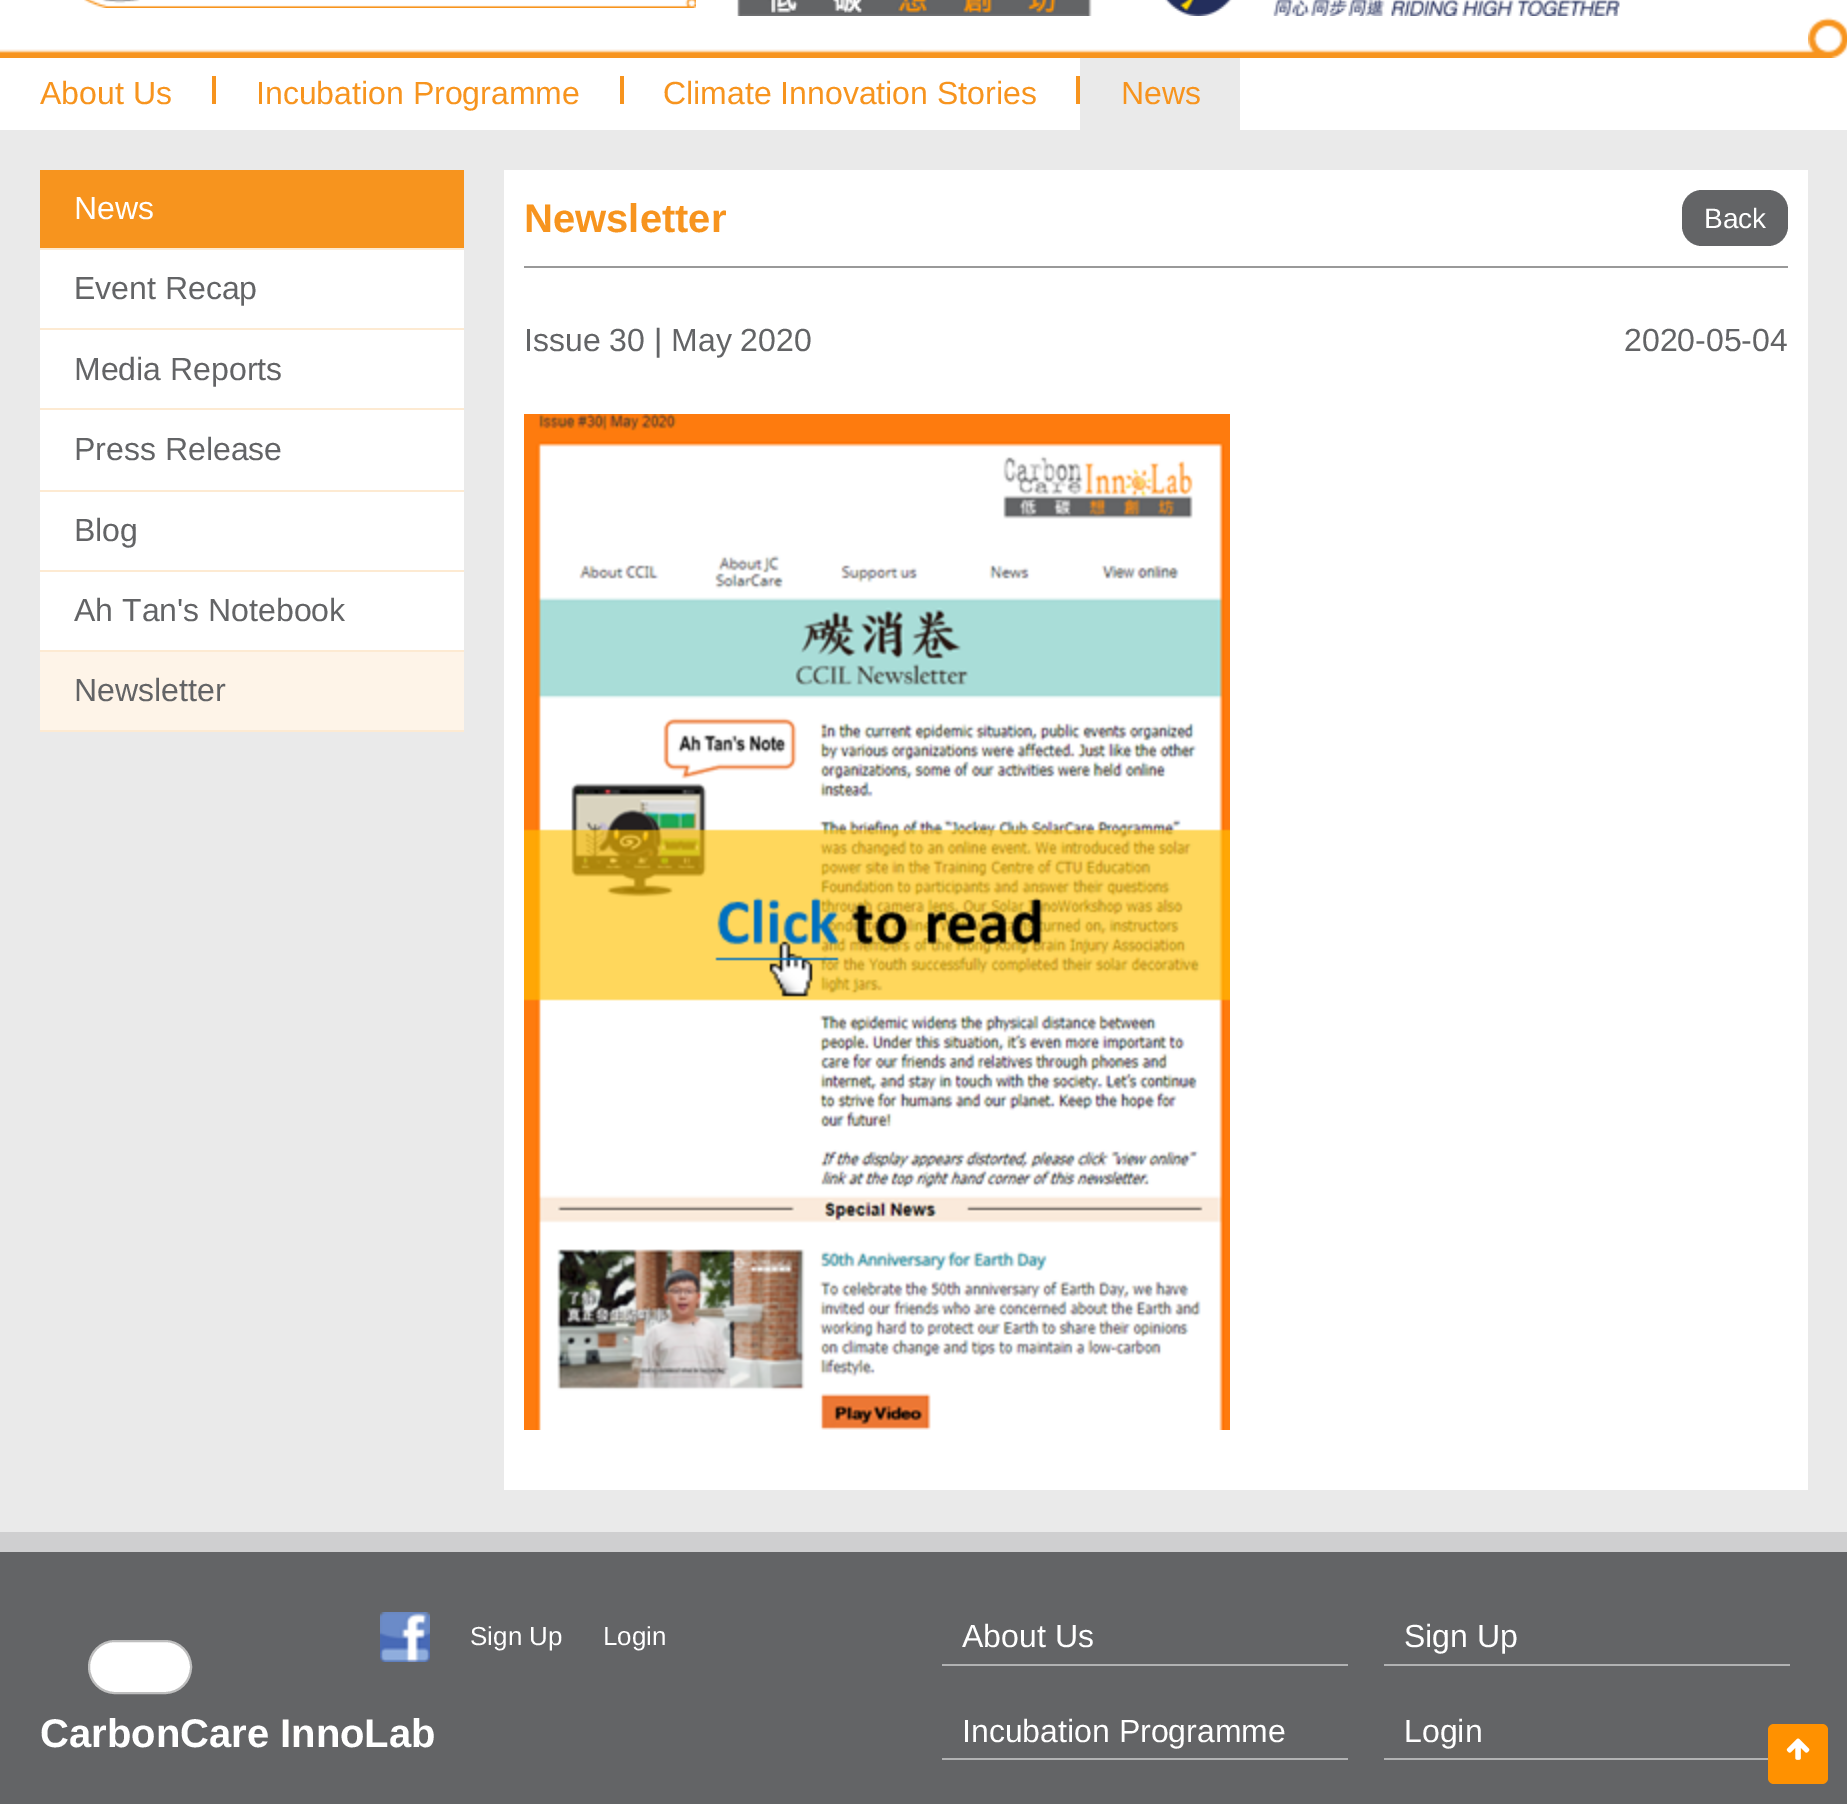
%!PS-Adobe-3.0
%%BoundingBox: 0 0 1847 1804
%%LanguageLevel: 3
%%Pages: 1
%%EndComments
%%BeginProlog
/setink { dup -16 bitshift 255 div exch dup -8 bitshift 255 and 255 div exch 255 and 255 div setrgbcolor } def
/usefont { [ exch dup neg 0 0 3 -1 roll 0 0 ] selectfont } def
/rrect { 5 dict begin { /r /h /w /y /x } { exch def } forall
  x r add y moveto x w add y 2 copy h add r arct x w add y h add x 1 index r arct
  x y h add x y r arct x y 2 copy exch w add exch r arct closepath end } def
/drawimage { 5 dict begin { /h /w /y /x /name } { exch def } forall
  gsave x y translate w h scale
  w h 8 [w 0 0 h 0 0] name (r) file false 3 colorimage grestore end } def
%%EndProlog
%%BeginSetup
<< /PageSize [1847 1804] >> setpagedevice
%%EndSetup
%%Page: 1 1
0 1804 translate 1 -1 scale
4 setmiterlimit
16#EAEAEA setink
0 0 1847 1804 rectfill
16#FFFFFF setink
0 0 1847 130 rectfill
(img1.raw) 84 0 612 8 drawimage
(img2.raw) 737 0 883 16 drawimage
(img3.raw) 0 49 923 9 drawimage
(img4.raw) 923 49 885 9 drawimage
(img5.raw) 1808 17 39 41 drawimage
/LiberationSans-Regular 32 usefont
16#F7941E setink
40 104 moveto (About Us) show
212 76 4 28 rectfill
256 104 moveto (Incubation Programme) show
620 76 4 28 rectfill
663 104 moveto (Climate Innovation Stories) show
1076 76 4 28 rectfill
16#EAEAEA setink
1080 58 160 72 rectfill
16#F7941E setink
1121 104 moveto (News) show
[
    [40 250 424 400 16#FFFFFF]
    [40 170 424 78 16#F7941E]
    [40 248 424 2 16#FDEAD2]
] { aload pop setink rectfill } forall
16#FFFFFF setink
74 219 moveto (News) show
16#FDEAD2 setink
40 328 424 2 rectfill
16#636466 setink
74 299 moveto (Event Recap) show
16#FDEAD2 setink
40 408 424 2 rectfill
16#636466 setink
74 380 moveto (Media Reports) show
16#FDEAD2 setink
40 490 424 2 rectfill
16#636466 setink
74 460 moveto (Press Release) show
16#FDEAD2 setink
40 570 424 2 rectfill
16#636466 setink
74 541 moveto (Blog) show
16#FDEAD2 setink
40 650 424 2 rectfill
16#636466 setink
74 621 moveto (Ah Tan's Notebook) show
16#FEF4E8 setink
40 652 424 78 rectfill
16#FDEAD2 setink
40 730 424 2 rectfill
16#636466 setink
74 701 moveto (Newsletter) show
16#FFFFFF setink
504 170 1304 1320 rectfill
16#999999 setink
524 266 1264 2 rectfill
/LiberationSans-Bold 40 usefont
16#F7941E setink
524 232 moveto (Newsletter) show
16#636466 setink
1682 190 106 56 20 rrect fill
/LiberationSans-Regular 28 usefont
16#FFFFFF setink
1704 228 moveto (Back) show
/LiberationSans-Regular 32 usefont
16#636466 setink
524 351 moveto (Issue 30 | May 2020) show
1624 351 moveto (2020-05-04) show
(img6.raw) 524 414 706 1016 drawimage
0 1552 1847 252 rectfill
16#FF9100 setink
1768 1724 60 60 6 rrect fill
(img7.raw) 1786 1738 24 22 drawimage
16#CFCFD0 setink
0 1532 1847 20 rectfill
16#FFFFFF setink
89 1641 102 52 26 rrect gsave fill grestore
16#BEBEBE setink
2 setlinewidth
stroke
(img8.raw) 380 1612 50 50 drawimage
/LiberationSans-Regular 26 usefont
16#FFFFFF setink
470 1645 moveto (Sign Up) show
603 1645 moveto (Login) show
16#B1B2B3 setink
942 1664 406 2 rectfill
/LiberationSans-Regular 32 usefont
16#FFFFFF setink
962 1647 moveto (About Us) show
16#B1B2B3 setink
942 1758 406 2 rectfill
16#FFFFFF setink
962 1742 moveto (Incubation Programme) show
16#B1B2B3 setink
1384 1664 406 2 rectfill
16#FFFFFF setink
1404 1647 moveto (Sign Up) show
16#B1B2B3 setink
1384 1758 384 2 rectfill
16#FFFFFF setink
1404 1742 moveto (Login) show
/LiberationSans-Bold 40 usefont
40 1747 moveto (CarbonCare InnoLab) show
showpage
%%EOF
